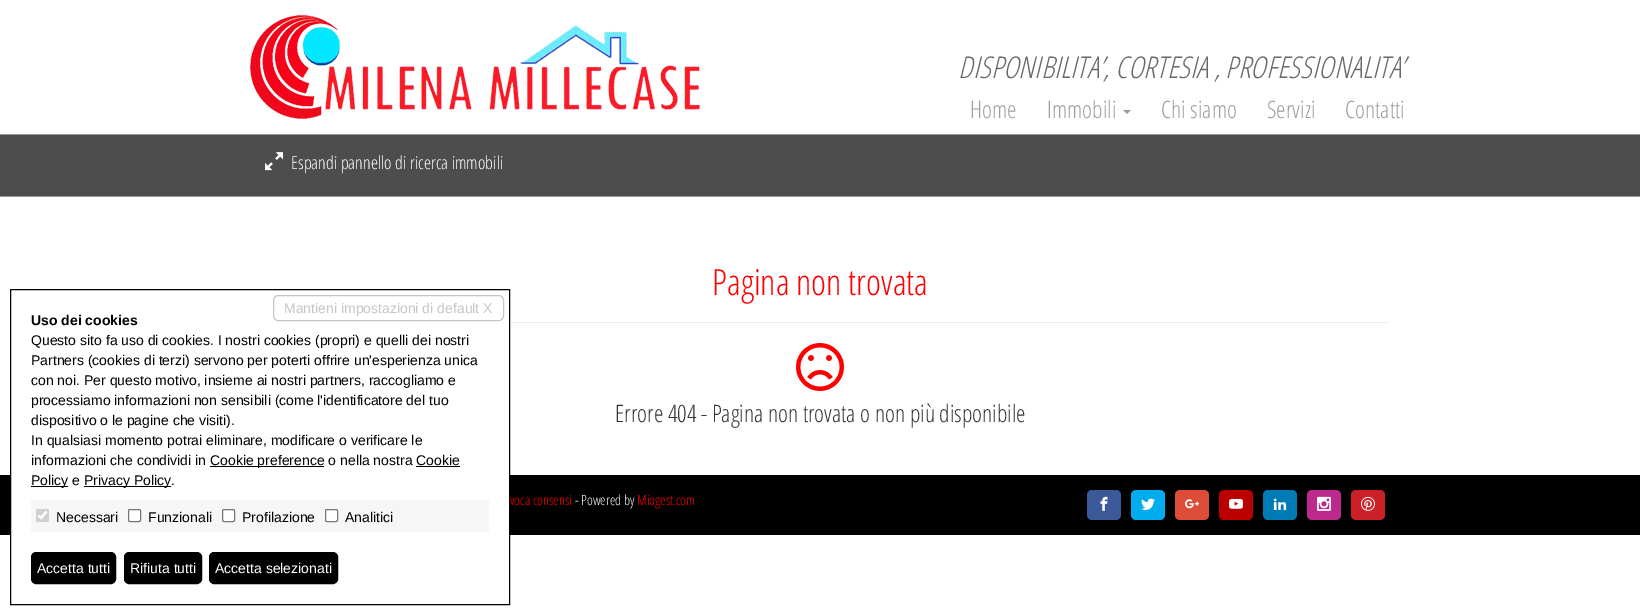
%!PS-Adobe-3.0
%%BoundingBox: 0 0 1640 615
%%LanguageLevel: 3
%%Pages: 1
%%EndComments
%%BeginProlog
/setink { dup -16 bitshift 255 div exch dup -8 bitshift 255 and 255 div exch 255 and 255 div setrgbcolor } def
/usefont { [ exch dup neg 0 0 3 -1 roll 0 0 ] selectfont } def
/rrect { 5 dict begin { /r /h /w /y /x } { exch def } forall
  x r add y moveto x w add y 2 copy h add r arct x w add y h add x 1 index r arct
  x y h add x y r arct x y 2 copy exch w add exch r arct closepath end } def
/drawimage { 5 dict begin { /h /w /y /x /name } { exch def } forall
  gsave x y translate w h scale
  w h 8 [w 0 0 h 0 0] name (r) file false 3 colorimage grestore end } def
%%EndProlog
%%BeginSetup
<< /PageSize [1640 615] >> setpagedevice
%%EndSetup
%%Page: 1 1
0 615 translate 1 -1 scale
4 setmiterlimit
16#FFFFFF setink
0 0 1640 615 rectfill
16#969696 setink
0 134 1640 1 rectfill
(img1.raw) 250 15 450 104 drawimage
/OpenSansCondensed-LightItalic 30 usefont
16#696969 setink
958 78 moveto (DISPONIBILITA’, CORTESIA , PROFESSIONALITA’) show
/OpenSansCondensed-Light 24 usefont
16#9D9D9D setink
970 118 moveto (Home) show
1047 118 moveto (Immobili) show
1123 110 moveto 1131 110 lineto 1127 114 lineto closepath fill
[
    [(Chi siamo) 1161 118]
    [(Servizi) 1267 118]
    [(Contatti) 1345 118]
] { aload pop moveto show } forall
16#4D4D4D setink
0 135 1640 61 rectfill
16#969696 setink
0 196 1640 1 rectfill
(img2.raw) 265 152 18 19 drawimage
/OpenSansCondensed-Light 18 usefont
16#FFFFFF setink
291 169 moveto (Espandi pannello di ricerca immobili) show
16#000000 setink
0 475 1640 60 rectfill
16#FFFFFF setink
11 475 498 60 rectfill
16#000000 setink
10.5 289.5 499 315 rectstroke
16#C6C6C6 setink
273.5 295.5 230 25 4.5 rrect stroke
/LiberationSans-Regular 14 usefont
284 313 moveto (Mantieni impostazioni di default X) show
/LiberationSans-Bold 14 usefont
16#000000 setink
31 325 moveto (Uso dei cookies) show
/LiberationSans-Regular 14 usefont
[
    [(Questo sito fa uso di cookies. I nostri cookies \(propri\) e quelli dei nostri) 31 345]
    [(Partners \(cookies di terzi\) servono per poterti offrire un'esperienza unica) 31 365]
    [(con noi. Per questo motivo, insieme ai nostri partners, raccogliamo e) 31 385]
    [(processiamo informazioni non sensibili \(come l'identificatore del tuo) 31 405]
    [(dispositivo o le pagine che visiti\).) 31 425]
    [(In qualsiasi momento potrai eliminare, modificare o verificare le) 31 445]
    [(informazioni che condividi in) 31 465]
] { aload pop moveto show } forall
210 466 114 1 rectfill
210 465 moveto (Cookie preference o nella nostra Cookie) show
31 486 37 1 rectfill
31 485 moveto (Policy e) show
416 466 44 1 rectfill
84 486 87 1 rectfill
84 485 moveto (Privacy Policy.) show
16#F6F6F6 setink
31 500 458 32 rectfill
16#D0D0D0 setink
36 509 13 13 2 rrect fill
16#FFFFFF setink
2.1 setlinewidth
38.5 515.5 moveto 41 518 lineto 46.5 511.5 lineto stroke
16#000000 setink
56 522 moveto (Necessari) show
16#FFFFFF setink
128.5 509.5 12 12 1.5 rrect gsave fill grestore
16#767676 setink
1 setlinewidth
stroke
16#000000 setink
148 522 moveto (Funzionali) show
16#FFFFFF setink
222.5 509.5 12 12 1.5 rrect gsave fill grestore
16#767676 setink
stroke
16#000000 setink
242 522 moveto (Profilazione) show
16#FFFFFF setink
325.5 509.5 12 12 1.5 rrect gsave fill grestore
16#767676 setink
stroke
16#000000 setink
345 522 moveto (Analitici) show
31.5 552.5 84 31 4.5 rrect gsave fill grestore
stroke
16#FFFFFF setink
37 573 moveto (Accetta tutti) show
16#000000 setink
124.5 552.5 77 31 4.5 rrect gsave fill grestore
stroke
16#FFFFFF setink
130 573 moveto (Rifiuta tutti) show
16#000000 setink
209.5 552.5 128 31 4.5 rrect gsave fill grestore
stroke
16#FFFFFF setink
215 573 moveto (Accetta selezionati) show
/OpenSansCondensed-Light 14 usefont
16#FF0000 setink
510 505 moveto (voca consensi) show
16#FFFFFF setink
575 505 moveto (- Powered by) show
16#FF0000 setink
637 505 moveto (Miogest.com) show
16#3B5998 setink
1087 490 34 30 5 rrect fill
(img3.raw) 1100 496 8 15 drawimage
16#00ACED setink
1131 490 34 30 5 rrect fill
(img4.raw) 1141 498 14 12 drawimage
16#DD4B39 setink
1175 490 34 30 5 rrect fill
(img5.raw) 1185 499 14 10 drawimage
16#BB0000 setink
1219 490 34 30 5 rrect fill
(img6.raw) 1229 498 14 11 drawimage
16#007BB6 setink
1263 490 34 30 5 rrect fill
(img7.raw) 1273 498 14 12 drawimage
16#BC2A8D setink
1307 490 34 30 5 rrect fill
(img8.raw) 1317 496 14 15 drawimage
16#CB2027 setink
1351 490 34 30 5 rrect fill
(img9.raw) 1361 496 14 15 drawimage
/OpenSansCondensed-Light 36 usefont
16#FF0000 setink
712 295 moveto (Pagina non trovata) show
16#EEEEEE setink
510 322 880 1 rectfill
(img10.raw) 796 343 48 48 drawimage
/OpenSansCondensed-Light 24 usefont
16#333333 setink
615 422 moveto (Errore 404 - Pagina non trovata o non più disponibile) show
showpage
%%EOF
